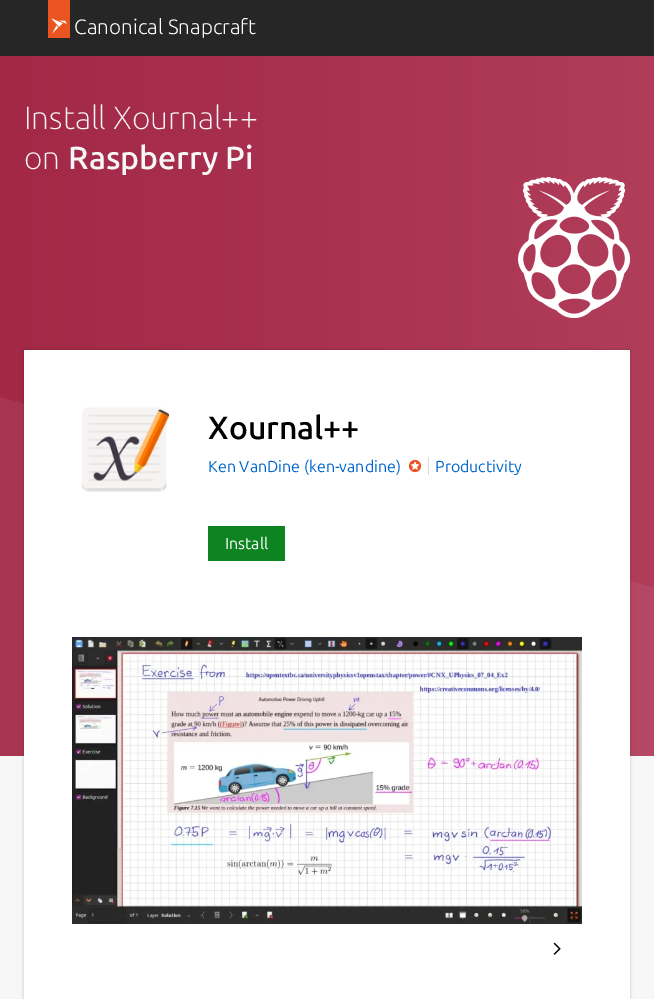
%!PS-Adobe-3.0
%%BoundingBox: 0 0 654 999
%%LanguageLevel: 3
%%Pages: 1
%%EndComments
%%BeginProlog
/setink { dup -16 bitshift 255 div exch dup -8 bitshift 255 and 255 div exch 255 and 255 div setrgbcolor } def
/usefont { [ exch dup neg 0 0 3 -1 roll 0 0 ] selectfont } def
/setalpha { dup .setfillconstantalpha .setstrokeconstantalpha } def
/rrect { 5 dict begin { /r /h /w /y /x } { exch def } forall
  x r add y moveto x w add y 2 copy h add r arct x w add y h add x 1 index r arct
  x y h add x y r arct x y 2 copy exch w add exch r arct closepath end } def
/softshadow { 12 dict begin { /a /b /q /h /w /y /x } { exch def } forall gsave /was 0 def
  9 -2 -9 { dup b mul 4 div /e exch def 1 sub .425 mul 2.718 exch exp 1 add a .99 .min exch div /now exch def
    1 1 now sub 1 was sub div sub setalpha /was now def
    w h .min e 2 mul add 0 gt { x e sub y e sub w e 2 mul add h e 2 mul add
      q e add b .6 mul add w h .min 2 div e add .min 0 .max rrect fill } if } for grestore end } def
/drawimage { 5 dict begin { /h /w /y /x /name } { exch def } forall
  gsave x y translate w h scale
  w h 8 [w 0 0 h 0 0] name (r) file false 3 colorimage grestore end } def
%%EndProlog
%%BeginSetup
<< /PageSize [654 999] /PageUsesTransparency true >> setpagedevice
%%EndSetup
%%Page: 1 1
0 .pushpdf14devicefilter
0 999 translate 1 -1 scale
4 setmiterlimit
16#F7F7F7 setink
0 0 654 999 rectfill
16#262626 setink
0 0 654 56 rectfill
16#E95420 setink
48 0 22 38 rectfill
(img1.raw) 51 18 16 16 drawimage
/Ubuntu-Light 20.75 usefont
16#FFFFFF setink
74 34 moveto (Canonical Snapcraft) show
gsave 0 56 moveto 654 56 lineto 654 756 lineto 0 756 lineto closepath clip newpath
<< /ShadingType 2 /ColorSpace /DeviceRGB /Coords [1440 406 0 406] /Extend [true true] /Function << /FunctionType 2 /Domain [0 1] /C0 [0.753 0.337 0.447] /C1 [0.635 0.157 0.275] /N 1 >> >> shfill grestore
0.06 setalpha
0 397 moveto 0 756 lineto 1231 756 lineto closepath fill
/Ubuntu-ExtraLight 32 usefont
1 setalpha
16#F7F7F7 setink
24 129 moveto (Install Xournal++) show
24 169 moveto (on) show
/Ubuntu-Medium 32 usefont
68 169 moveto (Raspberry Pi) show
(img2.raw) 518 177 112 141 drawimage
16#000000 setink
24 350 606 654 0 1.5 0.2 softshadow
16#FFFFFF setink
24 350 606 649 rectfill
(img3.raw) 81 407 89 85 drawimage
16#000000 setink
208 439 moveto (Xournal++) show
/Ubuntu-Regular 16 usefont
16#0066CC setink
208 472 moveto (Ken VanDine \(ken-vandine\)) show
16#D9D9D9 setink
428 457 1 18 rectfill
(img4.raw) 408 459 14 14 drawimage
16#0066CC setink
435 472 moveto (Productivity) show
16#0E8420 setink
208 526 77 35 rectfill
16#FFFFFF setink
225 549 moveto (Install) show
(img5.raw) 72 637 510 287 drawimage
(img6.raw) 553 942 8 13 drawimage
.poppdf14devicefilter showpage
%%EOF
